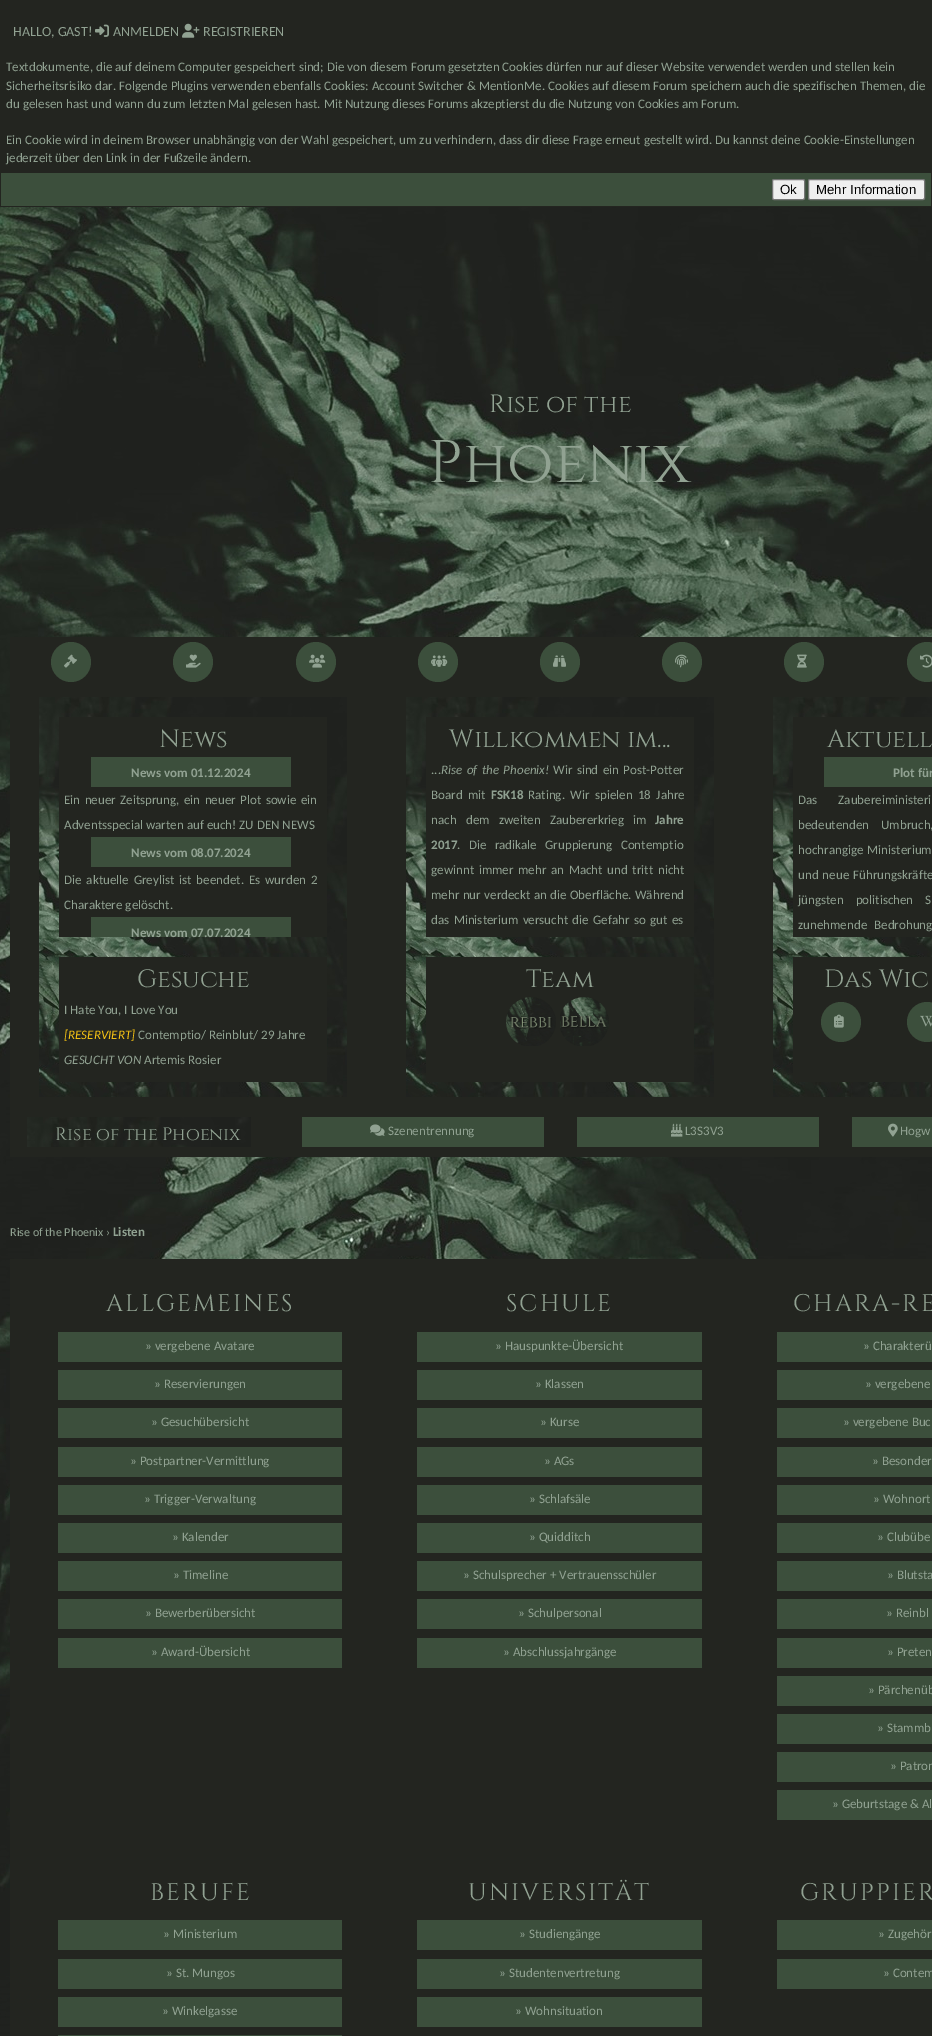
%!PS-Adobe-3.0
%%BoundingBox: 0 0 932 2036
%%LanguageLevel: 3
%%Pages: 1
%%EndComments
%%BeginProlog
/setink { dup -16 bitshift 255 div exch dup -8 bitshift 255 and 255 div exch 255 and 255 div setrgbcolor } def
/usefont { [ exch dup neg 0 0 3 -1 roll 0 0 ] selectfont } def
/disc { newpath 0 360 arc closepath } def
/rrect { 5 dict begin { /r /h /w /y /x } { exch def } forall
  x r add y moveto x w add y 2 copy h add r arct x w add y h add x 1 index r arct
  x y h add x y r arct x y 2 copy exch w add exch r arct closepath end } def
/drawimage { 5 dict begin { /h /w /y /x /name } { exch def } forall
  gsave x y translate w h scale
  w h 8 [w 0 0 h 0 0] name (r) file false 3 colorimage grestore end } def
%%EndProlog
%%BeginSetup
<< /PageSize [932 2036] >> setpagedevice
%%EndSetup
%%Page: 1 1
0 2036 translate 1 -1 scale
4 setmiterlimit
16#FFFFFF setink
0 0 932 2036 rectfill
(img1.raw) 0 207 932 1829 drawimage
16#232520 setink
0 0 932 207 rectfill
/Carlito-Regular 14 usefont
16#91A292 setink
13 36 moveto (HALLO, GAST!) show
(img2.raw) 95 24 14 13 drawimage
113 36 moveto (ANMELDEN) show
(img3.raw) 182 23 18 15 drawimage
203 36 moveto (REGISTRIEREN) show
/Carlito-Regular 13 usefont
[
    [(Textdokumente, die auf deinem Computer gespeichert sind; Die von diesem Forum gesetzten Cookies dürfen nur auf dieser Website verwendet werden und stellen kein) 6 71]
    [(Sicherheitsrisiko dar. Folgende Plugins verwenden ebenfalls Cookies: Account Switcher & MentionMe. Cookies auf diesem Forum speichern auch die spezifischen Themen, die) 6 90]
    [(du gelesen hast und wann du zum letzten Mal gelesen hast. Mit Nutzung dieses Forums akzeptierst du die Nutzung von Cookies am Forum.) 6 108]
    [(Ein Cookie wird in deinem Browser unabhängig von der Wahl gespeichert, um zu verhindern, dass dir diese Frage erneut gestellt wird. Du kannst deine Cookie-Einstellungen) 6 144]
    [(jederzeit über den Link in der Fußzeile ändern.) 6 162]
] { aload pop moveto show } forall
16#3C4F3C setink
1 173 930 33 rectfill
16#EFEFEF setink
772.5 179.5 32 20 1.5 rrect gsave fill grestore
16#767676 setink
stroke
/LiberationSans-Regular 13.25 usefont
16#000000 setink
780 194 moveto (Ok) show
16#EFEFEF setink
808.5 179.5 116 20 1.5 rrect gsave fill grestore
16#767676 setink
stroke
16#000000 setink
816 194 moveto (Mehr Information) show
/Cinzel-Regular 25 usefont
16#91A292 setink
489 412 moveto (Rise of the) show
/Cinzel-Regular 60 usefont
428 482 moveto (Phoenix) show
16#232520 setink
10 637 922 520 rectfill
16#3C4F3C setink
71 662 20 disc fill
(img4.raw) 64 654 13 14 drawimage
193 662 20 disc fill
(img5.raw) 186 654 15 14 drawimage
316 662 20 disc fill
(img6.raw) 309 654 17 14 drawimage
438 662 20 disc fill
(img7.raw) 431 655 17 12 drawimage
560 662 20 disc fill
(img8.raw) 553 655 13 12 drawimage
682 662 20 disc fill
(img9.raw) 675 654 13 14 drawimage
804 662 20 disc fill
(img10.raw) 797 654 10 14 drawimage
927 662 20 disc fill
(img11.raw) 920 654 12 14 drawimage
(img12.raw) 39 697 308 400 drawimage
16#232520 setink
59 717 268 220 rectfill
/Cinzel-Regular 25 usefont
16#91A292 setink
159 747 moveto (News) show
16#3C4F3C setink
91 757 200 30 rectfill
/Carlito-Bold 13 usefont
16#91A292 setink
131 777 moveto (News vom 01.12.2024) show
/Carlito-Regular 13 usefont
64 804 moveto 1.5 0 32 (Ein neuer Zeitsprung, ein neuer Plot sowie ein) widthshow
64 829 moveto (Adventsspecial warten auf euch! ZU DEN NEWS) show
16#3C4F3C setink
91 837 200 30 rectfill
/Carlito-Bold 13 usefont
16#91A292 setink
131 857 moveto (News vom 08.07.2024) show
/Carlito-Regular 13 usefont
64 884 moveto 2 0 32 (Die aktuelle Greylist ist beendet. Es wurden 2) widthshow
64 909 moveto (Charaktere gelöscht.) show
16#3C4F3C setink
91 917 200 20 rectfill
/Carlito-Bold 13 usefont
16#91A292 setink
131 937 moveto (News vom 07.07.2024) show
16#232520 setink
59 957 268 125 rectfill
/Cinzel-Regular 25 usefont
16#91A292 setink
137 987 moveto (Gesuche) show
/Carlito-Regular 13 usefont
64 1014 moveto (I Hate You, I Love You) show
/Carlito-Italic 13 usefont
16#F2C014 setink
64 1039 moveto ([RESERVIERT]) show
/Carlito-Regular 13 usefont
16#91A292 setink
138 1039 moveto (Contemptio/ Reinblut/ 29 Jahre) show
/Carlito-Italic 13 usefont
64 1064 moveto (GESUCHT VON) show
/Carlito-Regular 13 usefont
144 1064 moveto (Artemis Rosier) show
(img12.raw) 406 697 308 400 drawimage
16#232520 setink
426 717 268 220 rectfill
/Cinzel-Regular 25 usefont
16#91A292 setink
449 747 moveto (Willkommen im...) show
/Carlito-Regular 13 usefont
431 774 moveto (...) show
/Carlito-Italic 13 usefont
441 774 moveto 1.5 0 32 (Rise of the Phoenix!) widthshow
/Carlito-Regular 13 usefont
553 774 moveto 1.5 0 32 (Wir sind ein Post-Potter) widthshow
431 799 moveto 2.5 0 32 (Board mit) widthshow
/Carlito-Bold 13 usefont
491 799 moveto (FSK18) show
/Carlito-Regular 13 usefont
528 799 moveto 2.5 0 32 (Rating. Wir spielen 18 Jahre) widthshow
431 824 moveto 6.5 0 32 (nach dem zweiten Zaubererkrieg im) widthshow
/Carlito-Bold 13 usefont
655 824 moveto (Jahre) show
431 849 moveto (2017) show
/Carlito-Regular 13 usefont
457 849 moveto 5.5 0 32 (. Die radikale Gruppierung Contemptio) widthshow
431 874 moveto 1.75 0 32 (gewinnt immer mehr an Macht und tritt nicht) widthshow
431 899 moveto 0.5 0 32 (mehr nur verdeckt an die Oberfläche. Während) widthshow
431 924 moveto 1.5 0 32 (das Ministerium versucht die Gefahr so gut es) widthshow
16#232520 setink
426 957 268 125 rectfill
/Cinzel-Regular 25 usefont
16#91A292 setink
526 987 moveto (Team) show
(img13.raw) 506 997 50 49 drawimage
(img14.raw) 560 997 49 49 drawimage
(img15.raw) 773 697 159 400 drawimage
16#232520 setink
793 717 139 220 rectfill
16#91A292 setink
827 747 moveto (Aktuell) show
16#3C4F3C setink
824 757 108 30 rectfill
/Carlito-Bold 13 usefont
16#91A292 setink
893 777 moveto (Plot für) show
/Carlito-Regular 13 usefont
798 804 moveto 18 0 32 (Das Zaubereiministeri) widthshow
798 829 moveto 9 0 32 (bedeutenden Umbruch,) widthshow
798 854 moveto 1 0 32 (hochrangige Ministerium) widthshow
798 879 moveto 1 0 32 (und neue Führungskräfte) widthshow
798 904 moveto 9 0 32 (jüngsten politischen S) widthshow
798 929 moveto 4 0 32 (zunehmende Bedrohung) widthshow
16#232520 setink
793 957 139 125 rectfill
/Cinzel-Regular 25 usefont
16#91A292 setink
824 987 moveto (Das Wic) show
16#3C4F3C setink
841 1022 20 disc fill
(img16.raw) 834 1014 10 14 drawimage
927 1022 20 disc fill
(img17.raw) 920 1015 12 12 drawimage
(img18.raw) 27 1117 224 30 drawimage
/Cinzel-Regular 18 usefont
16#91A292 setink
55 1140 moveto (Rise of the Phoenix) show
16#3C4F3C setink
302 1117 242 30 rectfill
(img19.raw) 370 1124 15 12 drawimage
/Carlito-Regular 13 usefont
16#91A292 setink
388 1135 moveto (Szenentrennung) show
16#3C4F3C setink
577 1117 242 30 rectfill
(img20.raw) 671 1123 12 14 drawimage
16#91A292 setink
685 1135 moveto (L3S3V3) show
16#3C4F3C setink
852 1117 80 30 rectfill
(img21.raw) 888 1123 10 14 drawimage
16#91A292 setink
900 1135 moveto (Hogw) show
/Carlito-Regular 12 usefont
10 1236 moveto (Rise of the Phoenix ›) show
/Carlito-Bold 13 usefont
113 1236 moveto (Listen) show
16#232520 setink
10 1259 922 777 rectfill
/Cinzel-Regular 24 usefont
16#91A292 setink
106 1311 moveto 2 0 (ALLGEMEINES) ashow
506 1311 moveto 2 0 (SCHULE) ashow
793 1311 moveto 2 0 (CHARA-RE) ashow
16#3C4F3C setink
58 1332 284 30 rectfill
/Carlito-Regular 13 usefont
16#91A292 setink
145 1350 moveto (» vergebene Avatare) show
16#3C4F3C setink
58 1370 284 30 rectfill
16#91A292 setink
154 1388 moveto (» Reservierungen) show
16#3C4F3C setink
58 1408 284 30 rectfill
16#91A292 setink
151 1426 moveto (» Gesuchübersicht) show
16#3C4F3C setink
58 1447 284 30 rectfill
16#91A292 setink
130 1465 moveto (» Postpartner-Vermittlung) show
16#3C4F3C setink
58 1485 284 30 rectfill
16#91A292 setink
144 1503 moveto (» Trigger-Verwaltung) show
16#3C4F3C setink
58 1523 284 30 rectfill
16#91A292 setink
172 1541 moveto (» Kalender) show
16#3C4F3C setink
58 1561 284 30 rectfill
16#91A292 setink
173 1579 moveto (» Timeline) show
16#3C4F3C setink
58 1599 284 30 rectfill
16#91A292 setink
145 1617 moveto (» Bewerberübersicht) show
16#3C4F3C setink
58 1638 284 30 rectfill
16#91A292 setink
151 1656 moveto (» Award-Übersicht) show
16#3C4F3C setink
417 1332 285 30 rectfill
16#91A292 setink
495 1350 moveto (» Hauspunkte-Übersicht) show
16#3C4F3C setink
417 1370 285 30 rectfill
16#91A292 setink
535 1388 moveto (» Klassen) show
16#3C4F3C setink
417 1408 285 30 rectfill
16#91A292 setink
540 1426 moveto (» Kurse) show
16#3C4F3C setink
417 1447 285 30 rectfill
16#91A292 setink
544 1465 moveto (» AGs) show
16#3C4F3C setink
417 1485 285 30 rectfill
16#91A292 setink
529 1503 moveto (» Schlafsäle) show
16#3C4F3C setink
417 1523 285 30 rectfill
16#91A292 setink
529 1541 moveto (» Quidditch) show
16#3C4F3C setink
417 1561 285 30 rectfill
16#91A292 setink
463 1579 moveto (» Schulsprecher + Vertrauensschüler) show
16#3C4F3C setink
417 1599 285 30 rectfill
16#91A292 setink
518 1617 moveto (» Schulpersonal) show
16#3C4F3C setink
417 1638 285 30 rectfill
16#91A292 setink
503 1656 moveto (» Abschlussjahrgänge) show
16#3C4F3C setink
777 1332 155 30 rectfill
16#91A292 setink
863 1350 moveto (» Charakterü) show
16#3C4F3C setink
777 1370 155 30 rectfill
16#91A292 setink
865 1388 moveto (» vergebene) show
16#3C4F3C setink
777 1408 155 30 rectfill
16#91A292 setink
843 1426 moveto (» vergebene Buc) show
16#3C4F3C setink
777 1447 155 30 rectfill
16#91A292 setink
872 1465 moveto (» Besonder) show
16#3C4F3C setink
777 1485 155 30 rectfill
16#91A292 setink
873 1503 moveto (» Wohnort) show
16#3C4F3C setink
777 1523 155 30 rectfill
16#91A292 setink
877 1541 moveto (» Clubübe) show
16#3C4F3C setink
777 1561 155 30 rectfill
16#91A292 setink
887 1579 moveto (» Blutsta) show
16#3C4F3C setink
777 1599 155 30 rectfill
16#91A292 setink
886 1617 moveto (» Reinbl) show
16#3C4F3C setink
777 1638 155 30 rectfill
16#91A292 setink
887 1656 moveto (» Preten) show
16#3C4F3C setink
777 1676 155 30 rectfill
16#91A292 setink
868 1694 moveto (» Pärchenüb) show
16#3C4F3C setink
777 1714 155 30 rectfill
16#91A292 setink
877 1732 moveto (» Stammb) show
16#3C4F3C setink
777 1752 155 30 rectfill
16#91A292 setink
890 1770 moveto (» Patron) show
16#3C4F3C setink
777 1790 155 30 rectfill
16#91A292 setink
832 1808 moveto (» Geburtstage & Al) show
/Cinzel-Regular 24 usefont
150 1900 moveto 2 0 (BERUFE) ashow
468 1900 moveto 2 0 (UNIVERSITÄT) ashow
800 1900 moveto 2 0 (GRUPPIER) ashow
16#3C4F3C setink
58 1920 284 30 rectfill
/Carlito-Regular 13 usefont
16#91A292 setink
163 1938 moveto (» Ministerium) show
16#3C4F3C setink
58 1959 284 30 rectfill
16#91A292 setink
166 1977 moveto (» St. Mungos) show
16#3C4F3C setink
58 1997 284 30 rectfill
16#91A292 setink
162 2015 moveto (» Winkelgasse) show
16#3C4F3C setink
58 2035 284 1 rectfill
417 1920 285 30 rectfill
16#91A292 setink
519 1938 moveto (» Studiengänge) show
16#3C4F3C setink
417 1959 285 30 rectfill
16#91A292 setink
499 1977 moveto (» Studentenvertretung) show
16#3C4F3C setink
417 1997 285 30 rectfill
16#91A292 setink
515 2015 moveto (» Wohnsituation) show
16#3C4F3C setink
777 1920 155 30 rectfill
16#91A292 setink
878 1938 moveto (» Zugehör) show
16#3C4F3C setink
777 1959 155 30 rectfill
16#91A292 setink
883 1977 moveto (» Contem) show
showpage
%%EOF
